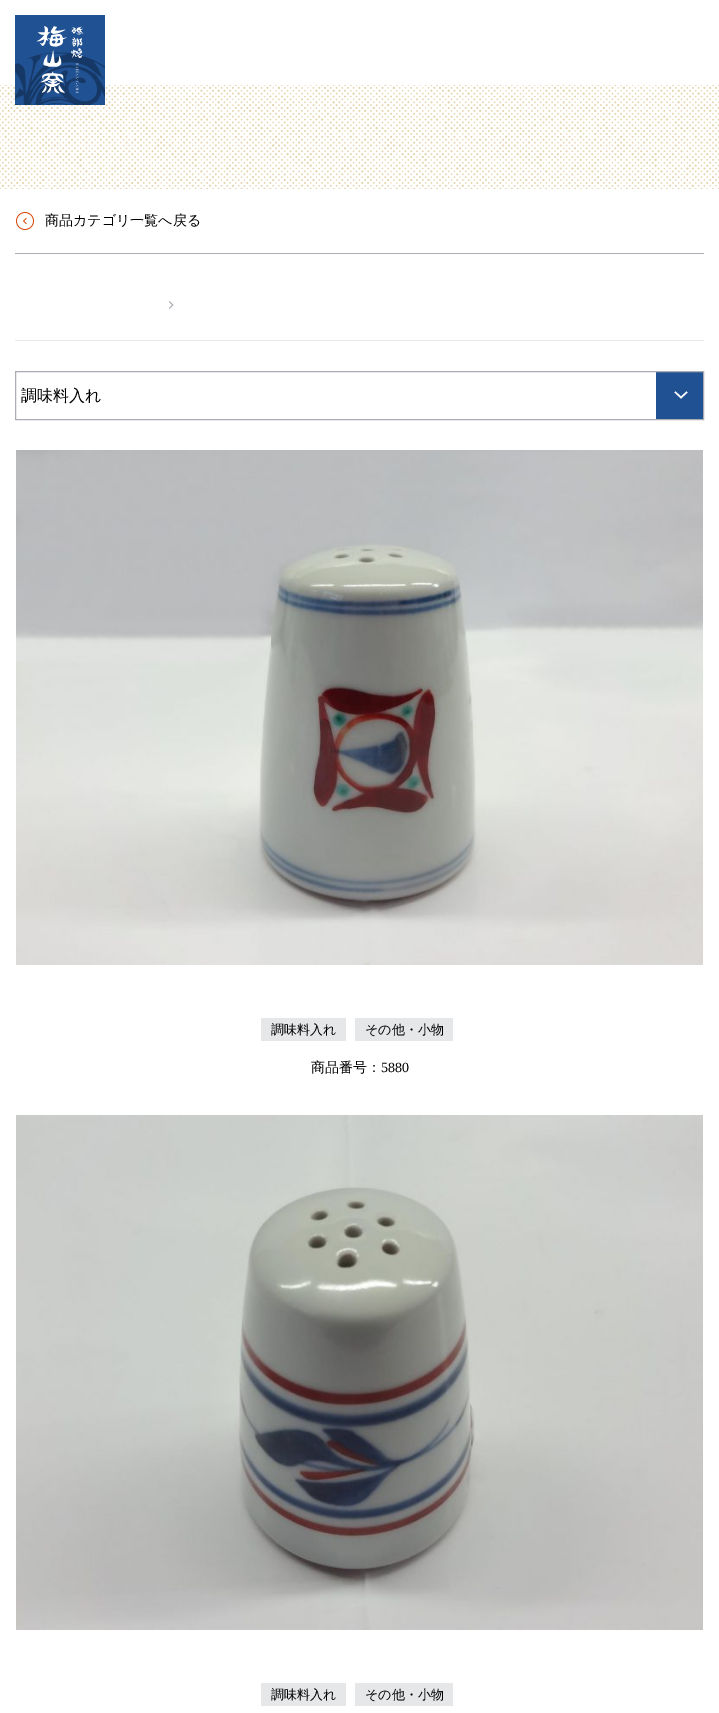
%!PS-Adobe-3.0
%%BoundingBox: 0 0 719 1713
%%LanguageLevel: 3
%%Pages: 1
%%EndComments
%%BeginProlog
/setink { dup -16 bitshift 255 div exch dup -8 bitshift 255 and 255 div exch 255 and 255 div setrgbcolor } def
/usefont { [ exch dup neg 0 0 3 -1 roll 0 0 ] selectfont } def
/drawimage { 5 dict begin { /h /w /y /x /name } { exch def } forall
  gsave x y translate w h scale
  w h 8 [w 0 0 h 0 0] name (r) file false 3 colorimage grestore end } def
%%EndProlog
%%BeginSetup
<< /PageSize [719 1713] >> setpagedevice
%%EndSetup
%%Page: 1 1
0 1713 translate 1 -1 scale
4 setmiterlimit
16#FFFFFF setink
0 0 719 1713 rectfill
(img2.raw) 0 85 719 104 drawimage
(img1.raw) 15 15 90 90 drawimage
(img3.raw) 16 212 18 18 drawimage
/WenQuanYiZenHei-Medium 14 usefont
16#000000 setink
45 225 moveto (商品カテゴリ一覧へ戻る) show
16#AAADB4 setink
15 253 689 1 rectfill
16#E6E7E9 setink
15 340 689 1 rectfill
(img4.raw) 168 301 6 8 drawimage
16#205192 setink
656 372 47 47 rectfill
16#FFFFFF setink
1.5 setlinewidth
675 392 moveto 681 397.5 lineto 687 392 lineto stroke
16#AAADB4 setink
1 setlinewidth
15.5 371.5 688 48 rectstroke
/WenQuanYiZenHei-Medium 16 usefont
16#000000 setink
21 401 moveto (調味料入れ) show
(img5.raw) 16 450 687 515 drawimage
16#E6E7E9 setink
261 1018 85 23 rectfill
/WenQuanYiZenHei-Medium 13 usefont
16#000000 setink
271 1034 moveto (調味料入れ) show
16#E6E7E9 setink
355 1018 98 23 rectfill
16#000000 setink
365 1034 moveto (その他・小物) show
/WenQuanYiZenHei-Medium 14 usefont
311 1072 moveto (商品番号：) show
/LiberationSerif-Regular 14 usefont
381 1072 moveto (5880) show
(img6.raw) 16 1115 687 515 drawimage
16#E6E7E9 setink
261 1683 85 23 rectfill
/WenQuanYiZenHei-Medium 13 usefont
16#000000 setink
271 1699 moveto (調味料入れ) show
16#E6E7E9 setink
355 1683 98 23 rectfill
16#000000 setink
365 1699 moveto (その他・小物) show
showpage
%%EOF
